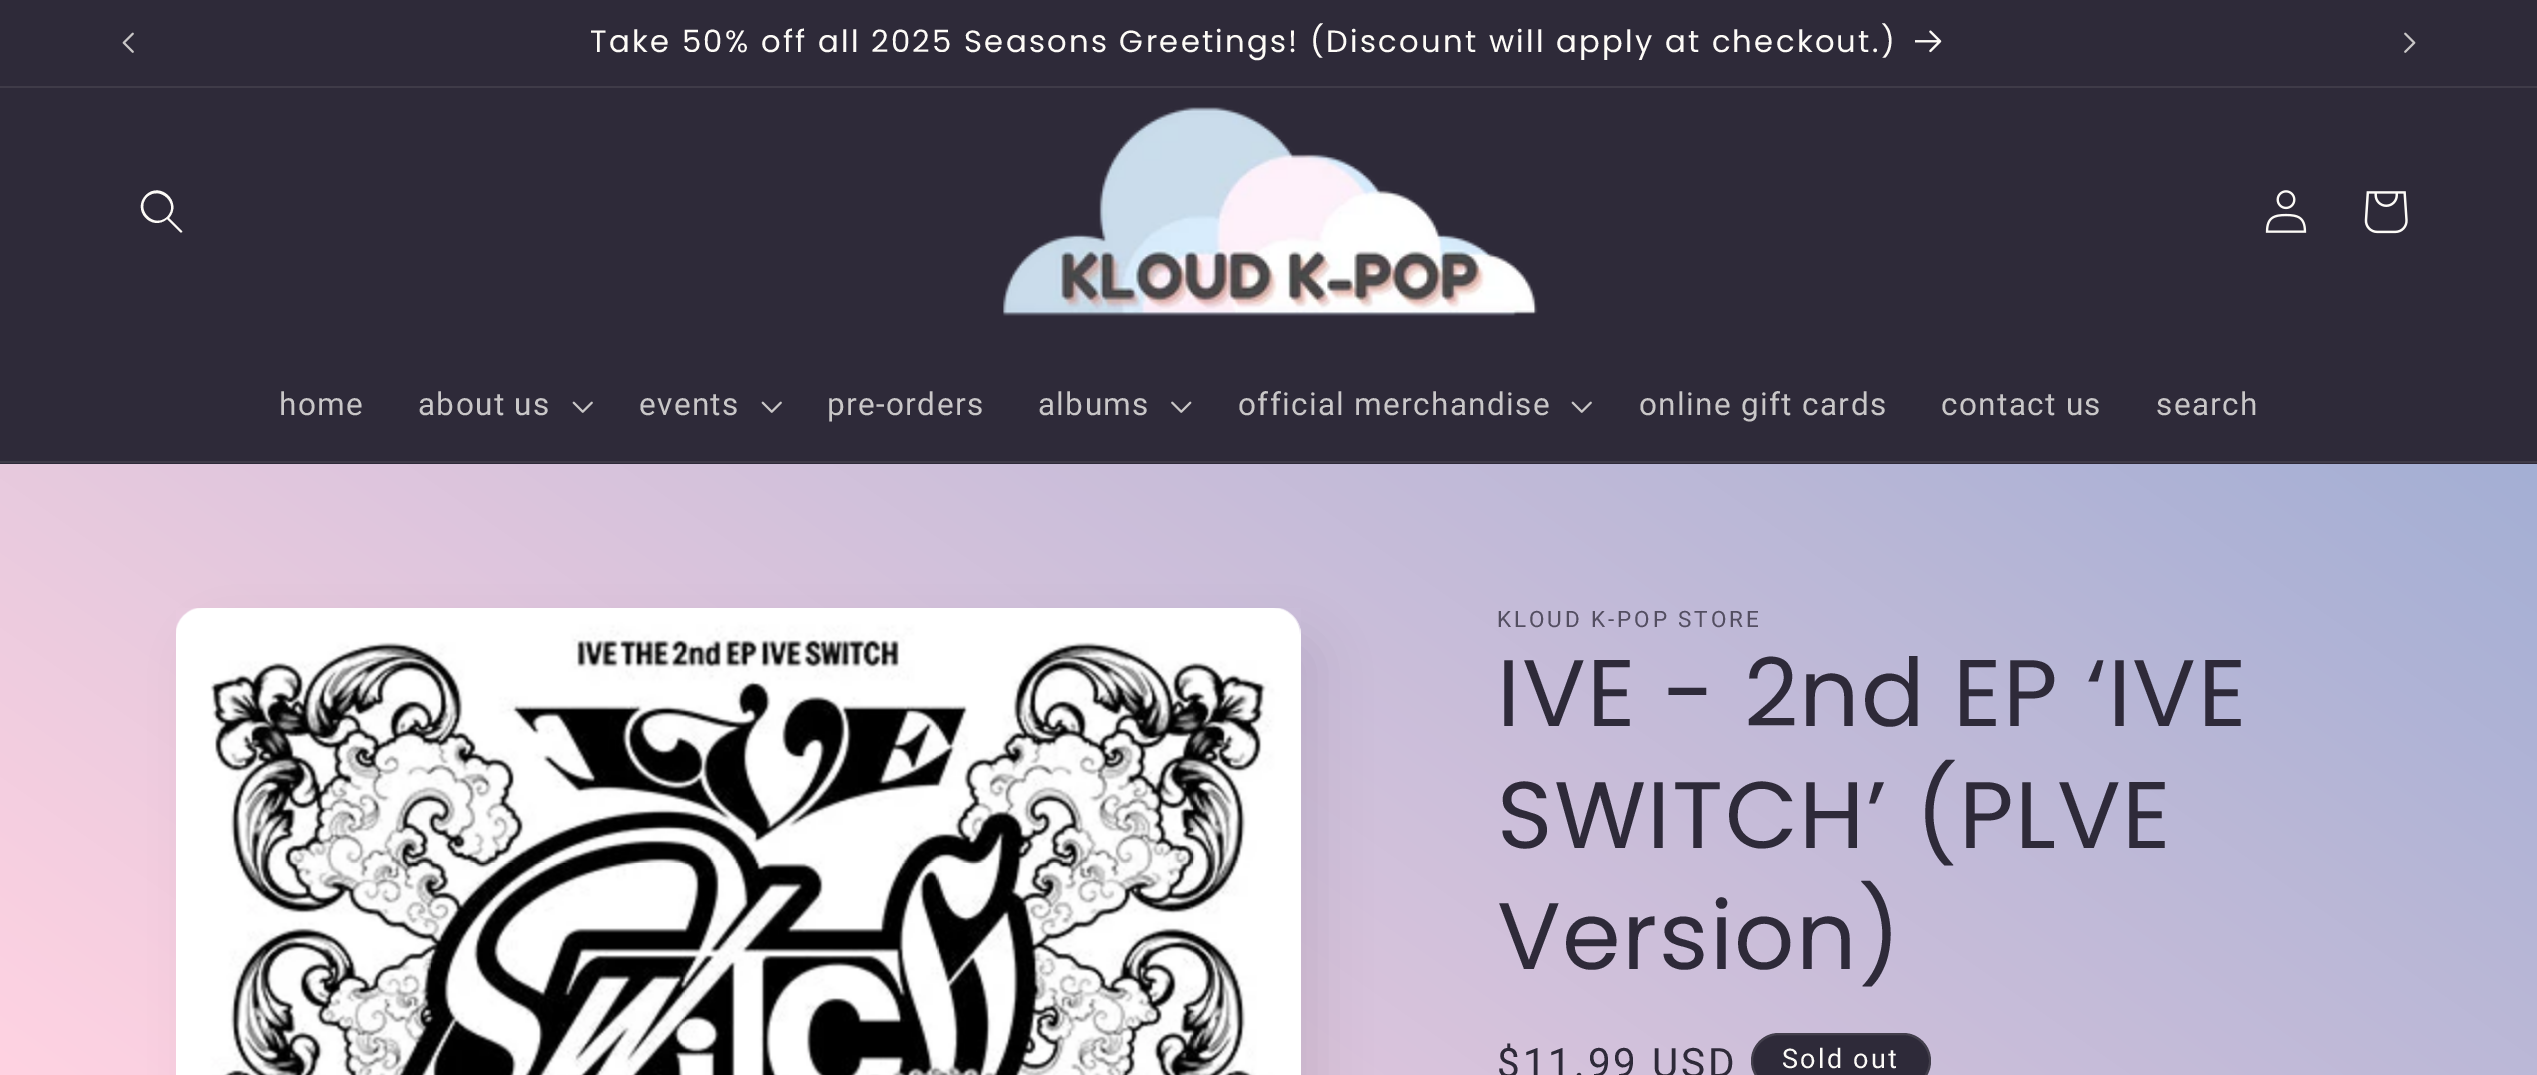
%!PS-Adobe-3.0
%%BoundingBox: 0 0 2537 1075
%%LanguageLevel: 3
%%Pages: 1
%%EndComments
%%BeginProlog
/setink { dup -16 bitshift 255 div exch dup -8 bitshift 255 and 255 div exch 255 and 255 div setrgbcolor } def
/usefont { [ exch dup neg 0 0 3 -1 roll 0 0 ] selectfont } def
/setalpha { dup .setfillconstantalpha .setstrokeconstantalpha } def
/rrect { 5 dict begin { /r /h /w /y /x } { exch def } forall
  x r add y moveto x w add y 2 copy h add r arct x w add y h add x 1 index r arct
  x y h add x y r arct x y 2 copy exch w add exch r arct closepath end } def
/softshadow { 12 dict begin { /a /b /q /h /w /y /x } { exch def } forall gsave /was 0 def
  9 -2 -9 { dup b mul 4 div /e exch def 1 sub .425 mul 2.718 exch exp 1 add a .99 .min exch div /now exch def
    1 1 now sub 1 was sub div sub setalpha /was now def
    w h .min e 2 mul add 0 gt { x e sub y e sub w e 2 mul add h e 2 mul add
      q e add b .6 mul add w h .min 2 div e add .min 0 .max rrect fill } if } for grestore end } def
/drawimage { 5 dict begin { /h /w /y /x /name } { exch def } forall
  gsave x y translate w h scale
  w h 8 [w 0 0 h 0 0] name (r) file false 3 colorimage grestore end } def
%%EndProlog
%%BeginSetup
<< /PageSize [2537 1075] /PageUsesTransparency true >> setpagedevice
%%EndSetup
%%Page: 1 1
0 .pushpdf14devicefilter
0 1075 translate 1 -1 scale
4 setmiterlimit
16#FFFFFF setink
0 0 2537 1075 rectfill
gsave 0 464 moveto 2537 464 lineto 2537 1075 lineto 0 1075 lineto closepath clip newpath
<< /ShadingType 2 /ColorSpace /DeviceRGB /Coords [599 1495 1939 -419] /Extend [true true] /Function << /FunctionType 2 /Domain [0 1] /C0 [1 0.827 0.886] /C1 [0.573 0.659 0.82] /N 1 >> >> shfill grestore
16#2E2A39 setink
0 0 2537 86 rectfill
16#3F3B48 setink
0 86 2537 2 rectfill
(img1.raw) 122 32 12 21 drawimage
/Poppins-Regular 30.7 usefont
16#FDFBF7 setink
590 52 moveto 2.25 0 (Take 50% off all 2025 Seasons Greetings! \(Discount will apply at checkout.\)) ashow
(img2.raw) 1915 30 27 23 drawimage
(img3.raw) 2404 32 12 21 drawimage
16#2E2A39 setink
0 88 2537 376 rectfill
16#3F3B48 setink
0 461 2537 2 rectfill
16#FDFBF7 setink
167 217 moveto 154 229 135 210 147 197 curveto 160 185 180 204 167 217 curveto 167 219 moveto 152 232 131 210 146 195 curveto 160 181 183 202 169 218 curveto 182 231 lineto 183 232 181 233 180 232 curveto closepath eofill
(img4.raw) 1003 107 535 209 drawimage
(img5.raw) 2265 190 42 43 drawimage
(img6.raw) 2364 191 44 43 drawimage
/Roboto-Regular 31.5 usefont
16#C9C7C8 setink
279 415 moveto 1.35 0 (home) ashow
418 415 moveto 1.35 0 (about us) ashow
(img7.raw) 572 401 21 12 drawimage
639 415 moveto 1.35 0 (events) ashow
(img7.raw) 761 401 21 12 drawimage
827 415 moveto 1.35 0 (pre-orders) ashow
1038 415 moveto 1.35 0 (albums) ashow
(img8.raw) 1171 401 21 12 drawimage
1238 415 moveto 1.35 0 (official merchandise) ashow
(img7.raw) 1571 401 21 12 drawimage
1639 415 moveto 1.35 0 (online gift cards) ashow
1941 415 moveto 1.35 0 (contact us) ashow
2156 415 moveto 1.35 0 (search) ashow
16#2E2A39 setink
198 635 1125 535 27 22.5 0.1 softshadow
gsave 203 608 moveto 1274 608 lineto 1289 608 1301 620 1301 635 curveto 1301 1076 lineto 176 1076 lineto 176 635 lineto 176 620 188 608 203 608 curveto closepath clip newpath
<< /ShadingType 2 /ColorSpace /DeviceRGB /Coords [599 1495 1939 -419] /Extend [true true] /Function << /FunctionType 2 /Domain [0 1] /C0 [1 0.827 0.886] /C1 [0.573 0.659 0.82] /N 1 >> >> shfill grestore
(img9.raw) 176 608 1125 467 drawimage
/Roboto-Regular 22.5 usefont
16#534E61 setink
1497 627 moveto 2.9 0 (KLOUD K-POP STORE) ashow
/Poppins-Regular 94.5 usefont
16#2E2A39 setink
1497 726 moveto 1.4 0 (IVE - 2nd EP ‘IVE) ashow
1497 848 moveto 1.4 0 (SWITCH’ \(PLVE) ashow
1497 969 moveto 1.4 0 (Version\)) ashow
/Roboto-Regular 40.5 usefont
1497 1077 moveto 2.9 0 ($11.99 USD) ashow
1751 1033 180 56 28 rrect fill
0.1 setalpha
16#FDFBF7 setink
2 setlinewidth
1752 1034 178 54 27 rrect stroke
/Roboto-Regular 27 usefont
1 setalpha
1782 1068 moveto 2.25 0 (Sold out) ashow
.poppdf14devicefilter showpage
%%EOF
